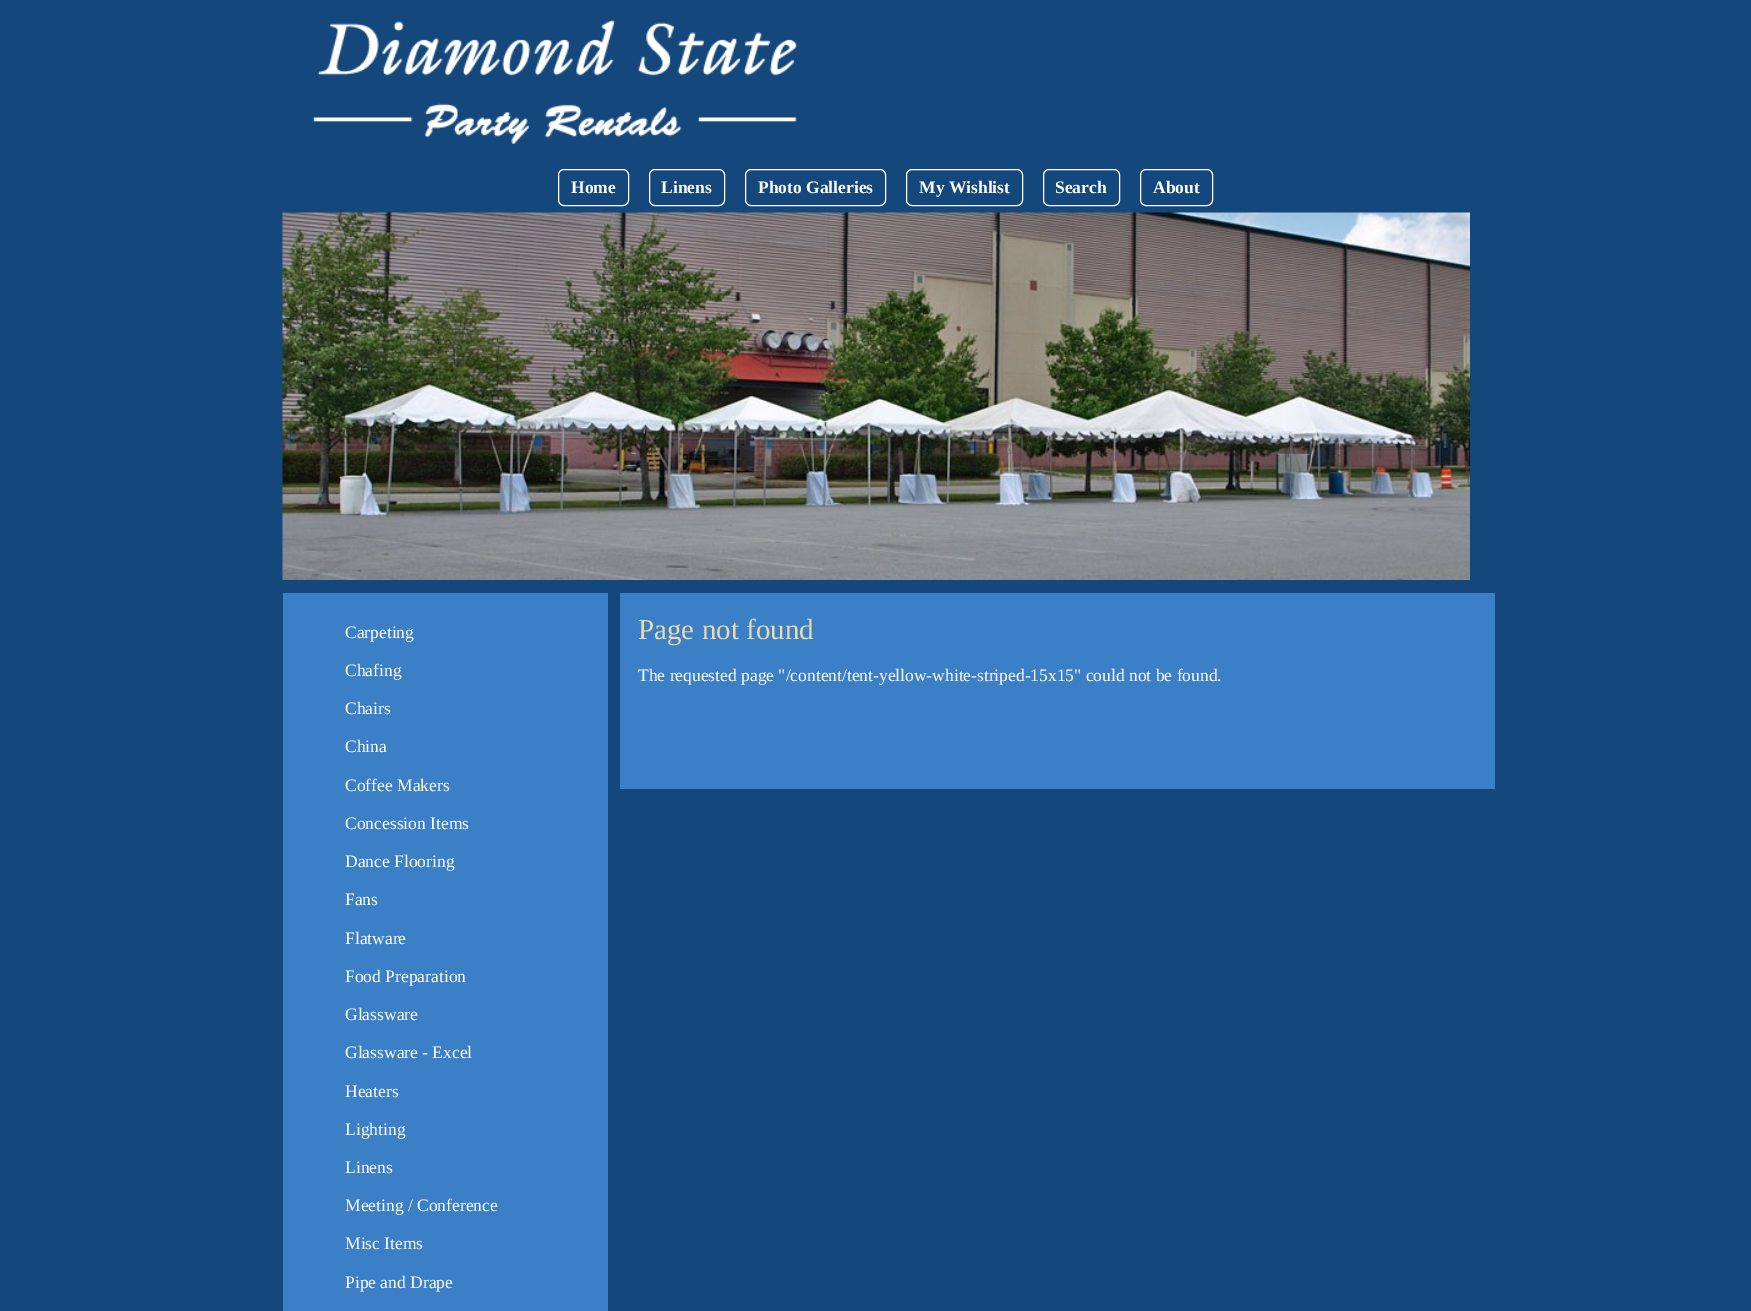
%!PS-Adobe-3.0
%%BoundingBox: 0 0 1751 1311
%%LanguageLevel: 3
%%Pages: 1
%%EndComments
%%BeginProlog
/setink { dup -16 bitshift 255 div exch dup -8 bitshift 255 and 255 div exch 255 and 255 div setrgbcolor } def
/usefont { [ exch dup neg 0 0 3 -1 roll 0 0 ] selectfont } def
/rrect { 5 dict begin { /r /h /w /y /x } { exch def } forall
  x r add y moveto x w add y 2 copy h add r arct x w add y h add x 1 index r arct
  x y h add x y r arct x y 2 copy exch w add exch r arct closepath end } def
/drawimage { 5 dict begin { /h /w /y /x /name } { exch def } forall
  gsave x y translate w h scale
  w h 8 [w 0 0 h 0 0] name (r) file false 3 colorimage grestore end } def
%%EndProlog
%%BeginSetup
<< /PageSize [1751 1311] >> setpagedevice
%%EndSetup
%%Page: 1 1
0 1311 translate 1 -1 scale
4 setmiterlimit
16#14477C setink
0 0 1751 1311 rectfill
(img1.raw) 313 20 484 124 drawimage
16#FFFFFF setink
558.5 169.5 70 36 5.5 rrect stroke
/LiberationSerif-Bold 17.5 usefont
571 193 moveto (Home) show
649.5 169.5 75 36 5.5 rrect stroke
661 193 moveto (Linens) show
745.5 169.5 140 36 5.5 rrect stroke
758 193 moveto (Photo Galleries) show
906.5 169.5 116 36 5.5 rrect stroke
919 193 moveto (My Wishlist) show
1043.5 169.5 76 36 5.5 rrect stroke
1055 193 moveto (Search) show
1140.5 169.5 72 36 5.5 rrect stroke
1153 193 moveto (About) show
(img2.raw) 282 212 1188 368 drawimage
16#3B7FC6 setink
283 593 325 718 rectfill
/LiberationSerif-Regular 17.5 usefont
16#FFFFFF setink
[
    [(Carpeting) 345 638]
    [(Chafing) 345 676]
    [(Chairs) 345 714]
    [(China) 345 752]
    [(Coffee Makers) 345 791]
    [(Concession Items) 345 829]
    [(Dance Flooring) 345 867]
    [(Fans) 345 905]
    [(Flatware) 345 944]
    [(Food Preparation) 345 982]
    [(Glassware) 345 1020]
    [(Glassware - Excel) 345 1058]
    [(Heaters) 345 1097]
    [(Lighting) 345 1135]
    [(Linens) 345 1173]
    [(Meeting / Conference) 345 1211]
    [(Misc Items) 345 1249]
    [(Pipe and Drape) 345 1288]
] { aload pop moveto show } forall
16#3B7FC6 setink
620 593 875 196 rectfill
/LiberationSerif-Regular 29 usefont
16#EBDAAD setink
638 639 moveto (Page not found) show
/LiberationSerif-Regular 17.5 usefont
16#FFFFFF setink
638 681 moveto (The requested page "/content/tent-yellow-white-striped-15x15" could not be found.) show
showpage
%%EOF
